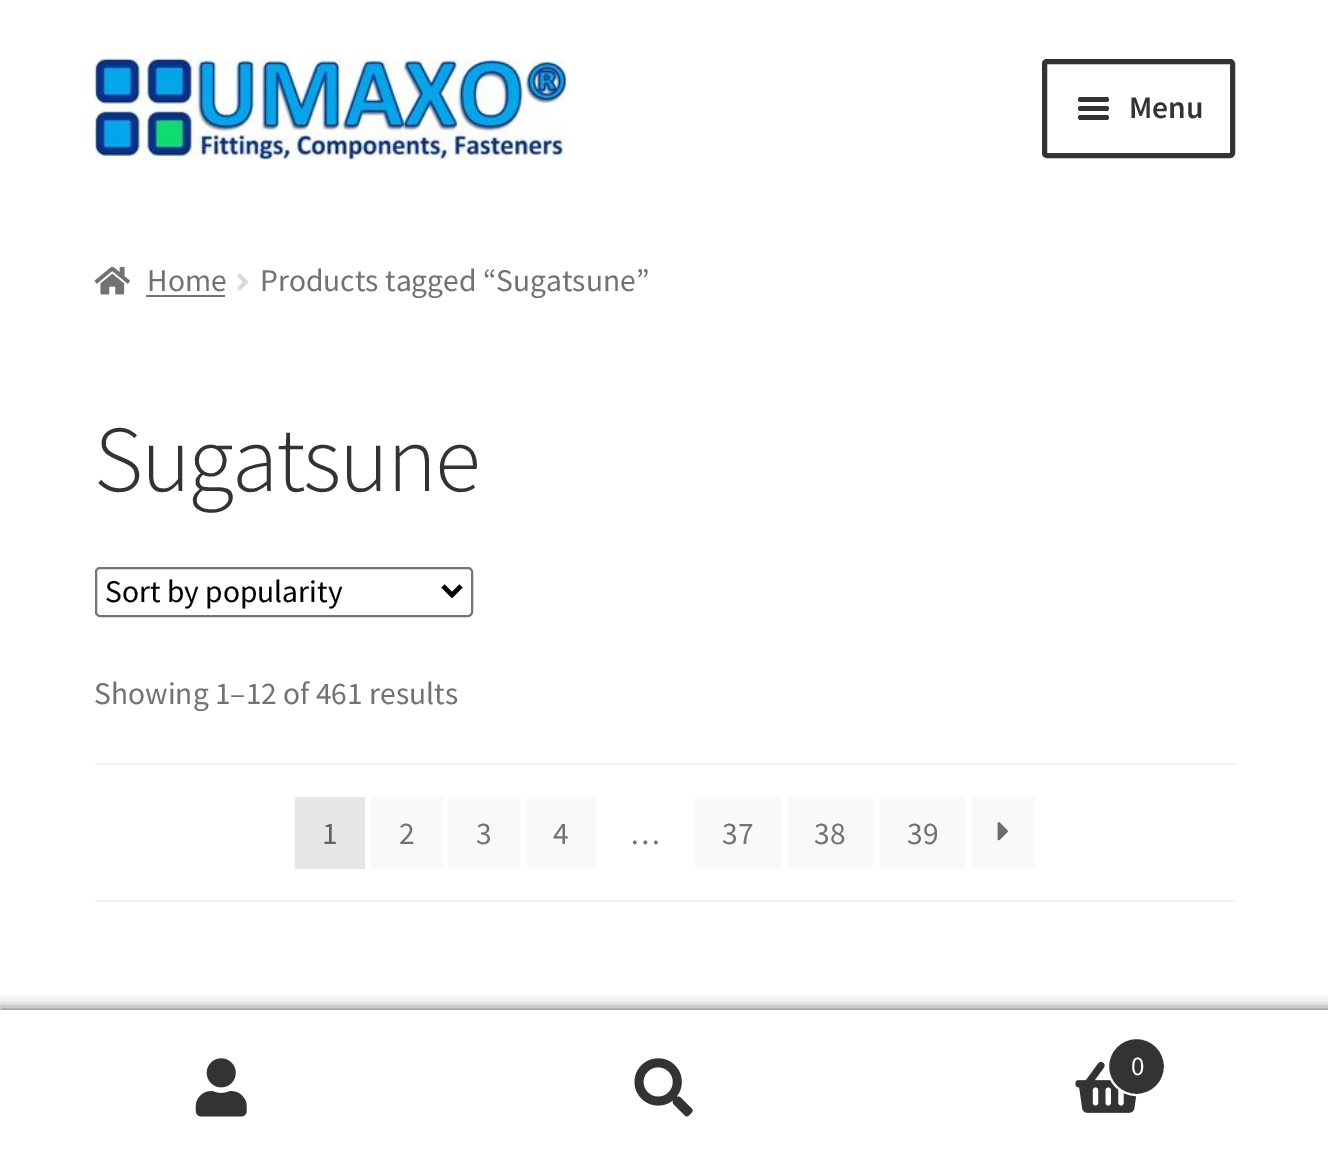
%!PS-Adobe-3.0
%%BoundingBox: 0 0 1328 1165
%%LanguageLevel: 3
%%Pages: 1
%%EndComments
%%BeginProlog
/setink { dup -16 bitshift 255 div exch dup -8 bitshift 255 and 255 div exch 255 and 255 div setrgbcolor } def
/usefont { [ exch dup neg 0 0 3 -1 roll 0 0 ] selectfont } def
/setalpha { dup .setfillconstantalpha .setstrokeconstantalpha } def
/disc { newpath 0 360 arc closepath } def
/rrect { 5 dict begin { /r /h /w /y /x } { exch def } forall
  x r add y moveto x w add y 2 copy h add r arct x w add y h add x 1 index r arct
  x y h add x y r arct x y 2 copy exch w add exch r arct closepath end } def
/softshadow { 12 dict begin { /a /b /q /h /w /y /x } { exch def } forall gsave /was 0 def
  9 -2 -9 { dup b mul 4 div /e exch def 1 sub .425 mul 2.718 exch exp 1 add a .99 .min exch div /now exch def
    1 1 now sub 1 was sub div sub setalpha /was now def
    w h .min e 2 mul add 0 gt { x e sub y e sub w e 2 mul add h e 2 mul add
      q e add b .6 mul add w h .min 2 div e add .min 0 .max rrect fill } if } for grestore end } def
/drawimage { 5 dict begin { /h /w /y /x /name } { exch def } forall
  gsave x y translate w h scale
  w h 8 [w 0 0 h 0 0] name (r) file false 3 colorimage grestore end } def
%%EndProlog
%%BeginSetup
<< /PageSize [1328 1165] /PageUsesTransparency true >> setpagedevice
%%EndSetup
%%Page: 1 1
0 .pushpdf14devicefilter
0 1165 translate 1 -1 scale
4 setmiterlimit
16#FFFFFF setink
0 0 1328 1165 rectfill
(img1.raw) 94 58 473 102 drawimage
16#333333 setink
5 setlinewidth
1044.5 61.5 188 94 2.5 rrect stroke
1078 97 31 5 2.5 rrect fill
1078 106 31 5 2.5 rrect fill
/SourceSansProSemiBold-SemiBold 31.5 usefont
1129 118 moveto (Menu) show
1078 115 31 5 2.5 rrect fill
(img2.raw) 94 266 36 29 drawimage
/SourceSansPro-Regular 31.5 usefont
16#727272 setink
147 291 moveto (Home) show
146 295 79 2 rectfill
(img3.raw) 237 273 12 18 drawimage
260 291 moveto (Products tagged “Sugatsune”) show
/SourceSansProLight-Light 94.25 usefont
16#333333 setink
94 491 moveto -2.25 0 (Sugatsune) ashow
16#767676 setink
2 setlinewidth
96 568 376 48 4 rrect stroke
16#000000 setink
4.5 setlinewidth
443 586 moveto 452 595 lineto 461 586 lineto stroke
/SourceSansPro-Regular 31.5 usefont
105 602 moveto (Sort by popularity) show
16#727272 setink
94 704 moveto (Showing 1–12 of 461 results) show
[
    [95 763 1140 2 16#F2F2F2]
    [95 900 1140 2 16#F2F2F2]
    [295 797 70 72 16#E6E6E6]
] { aload pop setink rectfill } forall
16#636363 setink
322 844 moveto (1) show
16#F9F9F9 setink
371 797 72 72 rectfill
16#727272 setink
399 844 moveto (2) show
16#F9F9F9 setink
448 797 72 72 rectfill
16#727272 setink
476 844 moveto (3) show
16#F9F9F9 setink
527 797 69 72 rectfill
16#727272 setink
553 844 moveto (4) show
630 844 moveto (…) show
16#F9F9F9 setink
695 797 86 72 rectfill
16#727272 setink
722 844 moveto (37) show
16#F9F9F9 setink
788 797 85 72 rectfill
16#727272 setink
814 844 moveto (38) show
16#F9F9F9 setink
880 797 85 72 rectfill
16#727272 setink
907 844 moveto (39) show
16#F9F9F9 setink
972 797 63 72 rectfill
(img4.raw) 997 822 11 19 drawimage
16#000000 setink
0 1010 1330 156 0 7 0.7 softshadow
16#FFFFFF setink
0 1010 1328 3 rectfill
0 1013 1328 152 rectfill
(img5.raw) 195 1058 52 59 drawimage
(img6.raw) 634 1058 59 59 drawimage
(img7.raw) 1075 1061 62 52 drawimage
16#333333 setink
1136.5 1066.5 28.5 disc gsave fill grestore
16#FFFFFF setink
2 setlinewidth
stroke
/SourceSansPro-Regular 27 usefont
1131 1075 moveto (0) show
.poppdf14devicefilter showpage
%%EOF
